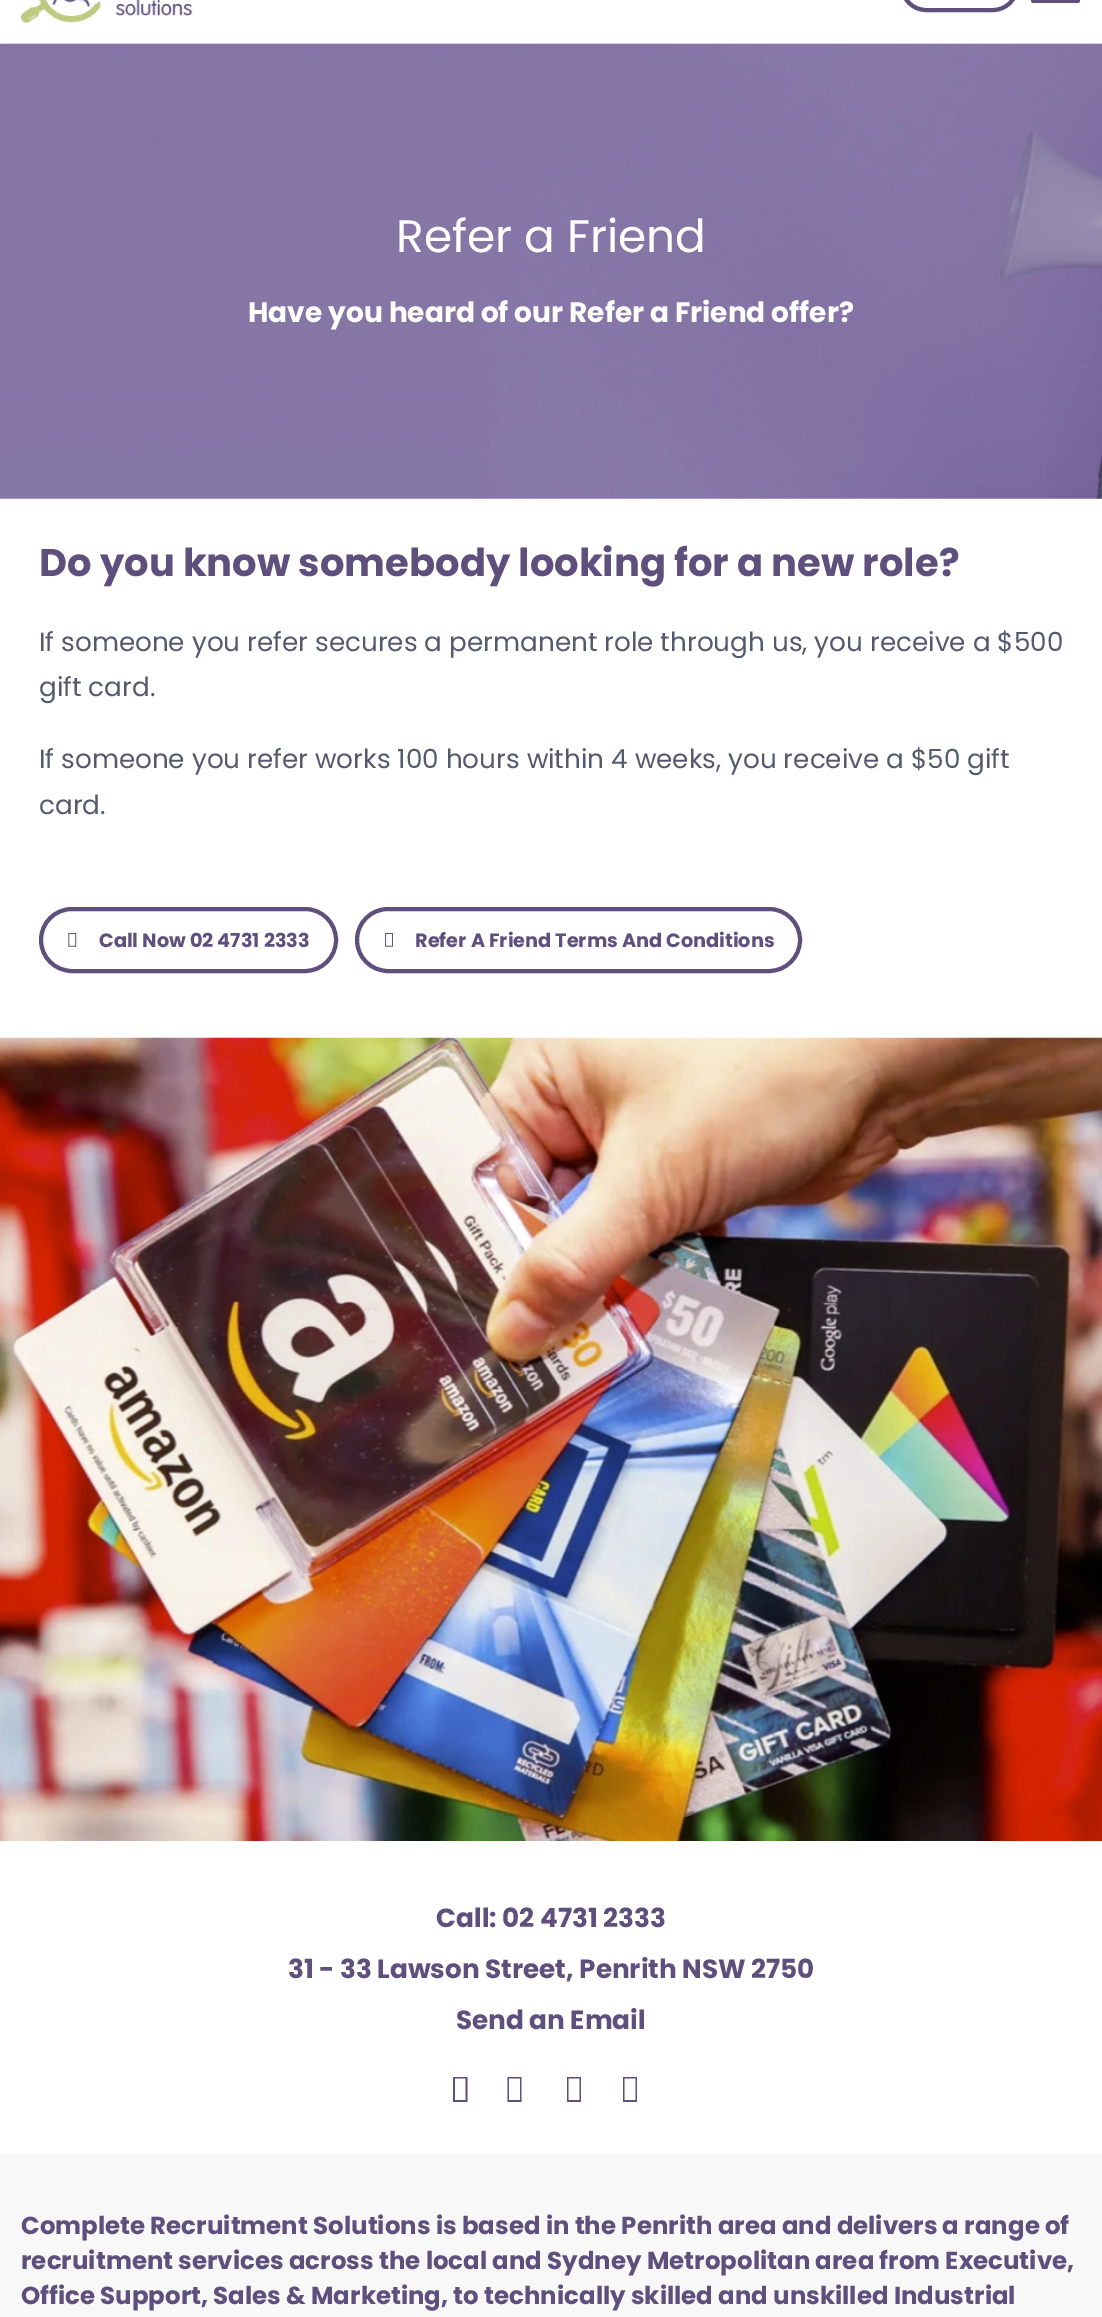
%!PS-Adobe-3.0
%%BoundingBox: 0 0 1102 2317
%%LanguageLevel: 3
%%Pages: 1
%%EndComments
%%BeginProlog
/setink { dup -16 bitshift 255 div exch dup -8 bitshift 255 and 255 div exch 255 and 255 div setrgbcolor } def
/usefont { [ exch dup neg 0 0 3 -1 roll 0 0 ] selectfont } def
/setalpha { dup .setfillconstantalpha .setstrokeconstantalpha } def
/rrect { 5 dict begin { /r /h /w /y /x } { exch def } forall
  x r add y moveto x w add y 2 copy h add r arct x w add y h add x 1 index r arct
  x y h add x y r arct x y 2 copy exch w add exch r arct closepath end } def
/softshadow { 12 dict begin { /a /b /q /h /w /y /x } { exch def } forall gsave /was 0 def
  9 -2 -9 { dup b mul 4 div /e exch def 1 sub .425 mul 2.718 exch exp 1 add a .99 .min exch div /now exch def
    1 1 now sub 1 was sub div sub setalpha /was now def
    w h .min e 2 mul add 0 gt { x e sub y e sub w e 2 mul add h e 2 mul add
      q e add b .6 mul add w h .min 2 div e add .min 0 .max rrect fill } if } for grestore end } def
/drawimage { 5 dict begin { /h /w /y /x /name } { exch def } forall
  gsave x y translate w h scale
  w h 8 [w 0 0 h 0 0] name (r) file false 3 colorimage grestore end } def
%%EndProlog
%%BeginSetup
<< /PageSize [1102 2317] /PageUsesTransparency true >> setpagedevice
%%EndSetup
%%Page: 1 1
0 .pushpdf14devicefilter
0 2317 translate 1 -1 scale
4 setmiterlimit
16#FFFFFF setink
0 0 1102 2317 rectfill
gsave
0 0 moveto 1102 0 lineto 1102 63 lineto 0 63 lineto closepath 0 -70 moveto 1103 -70 lineto 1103 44 lineto 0 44 lineto closepath eoclip newpath
16#000000 setink
0 -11 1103 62 0 3.5 0.15 softshadow
grestore
(img1.raw) 21 0 172 23 drawimage
16#5E4F7D setink
4 setlinewidth
902 -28 115 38 24 rrect stroke
1031 -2 49 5 2.5 rrect fill
(img2.raw) 0 43 1102 456 drawimage
/Poppins-Regular 45.5 usefont
16#FFFFFF setink
396 252 moveto (Refer a Friend) show
/Poppins-Bold 28 usefont
248 322 moveto (Have you heard of our Refer a Friend offer?) show
/Poppins-Bold 38.5 usefont
16#5E4F7D setink
39 576 moveto (Do you know somebody looking for a new role?) show
/Poppins-Regular 26.25 usefont
16#54596D setink
[
    [(If someone you refer secures a permanent role through us, you receive a $500) 39 651]
    [(gift card.) 39 696]
    [(If someone you refer works 100 hours within 4 weeks, you receive a $50 gift) 39 768]
    [(card.) 39 814]
] { aload pop moveto show } forall
16#5E4F7D setink
41 909 295 62 31 rrect stroke
(img3.raw) 68 933 9 14 drawimage
/Poppins-Bold 19.25 usefont
99 947 moveto (Call Now 02 4731 2333) show
357 909 443 62 31 rrect stroke
(img4.raw) 385 933 8 14 drawimage
415 947 moveto (Refer A Friend Terms And Conditions) show
(img5.raw) 0 1037 1102 804 drawimage
/Poppins-Bold 26.25 usefont
[
    [(Call: 02 4731 2333) 436 1927]
    [(31 - 33 Lawson Street, Penrith NSW 2750) 288 1978]
    [(Send an Email) 456 2029]
] { aload pop moveto show } forall
453 2102 moveto 453 2077 lineto 467.5 2077 lineto 467.5 2102 lineto closepath 455 2100 moveto 465.5 2100 lineto 465.5 2078.5 lineto 455 2078.5 lineto closepath fill
507.5 2102 moveto 507.5 2077 lineto 521.5 2077 lineto 521.5 2102 lineto closepath 509 2100 moveto 520 2100 lineto 520 2078.5 lineto 509 2078.5 lineto closepath fill
567 2102 moveto 567 2077 lineto 581 2077 lineto 581 2102 lineto closepath 568.5 2100 moveto 579.5 2100 lineto 579.5 2078.5 lineto 568.5 2078.5 lineto closepath fill
623 2102 moveto 623 2077 lineto 637 2077 lineto 637 2102 lineto closepath 624.5 2100 moveto 635.5 2100 lineto 635.5 2078.5 lineto 624.5 2078.5 lineto closepath fill
16#F8F8F8 setink
0 2154 1102 163 rectfill
/Poppins-Bold 24.5 usefont
16#5E4F7D setink
[
    [(Complete Recruitment Solutions is based in the Penrith area and delivers a range of) 21 2234]
    [(recruitment services across the local and Sydney Metropolitan area from Executive,) 21 2269]
    [(Office Support, Sales & Marketing, to technically skilled and unskilled Industrial) 21 2304]
] { aload pop moveto show } forall
.poppdf14devicefilter showpage
%%EOF
